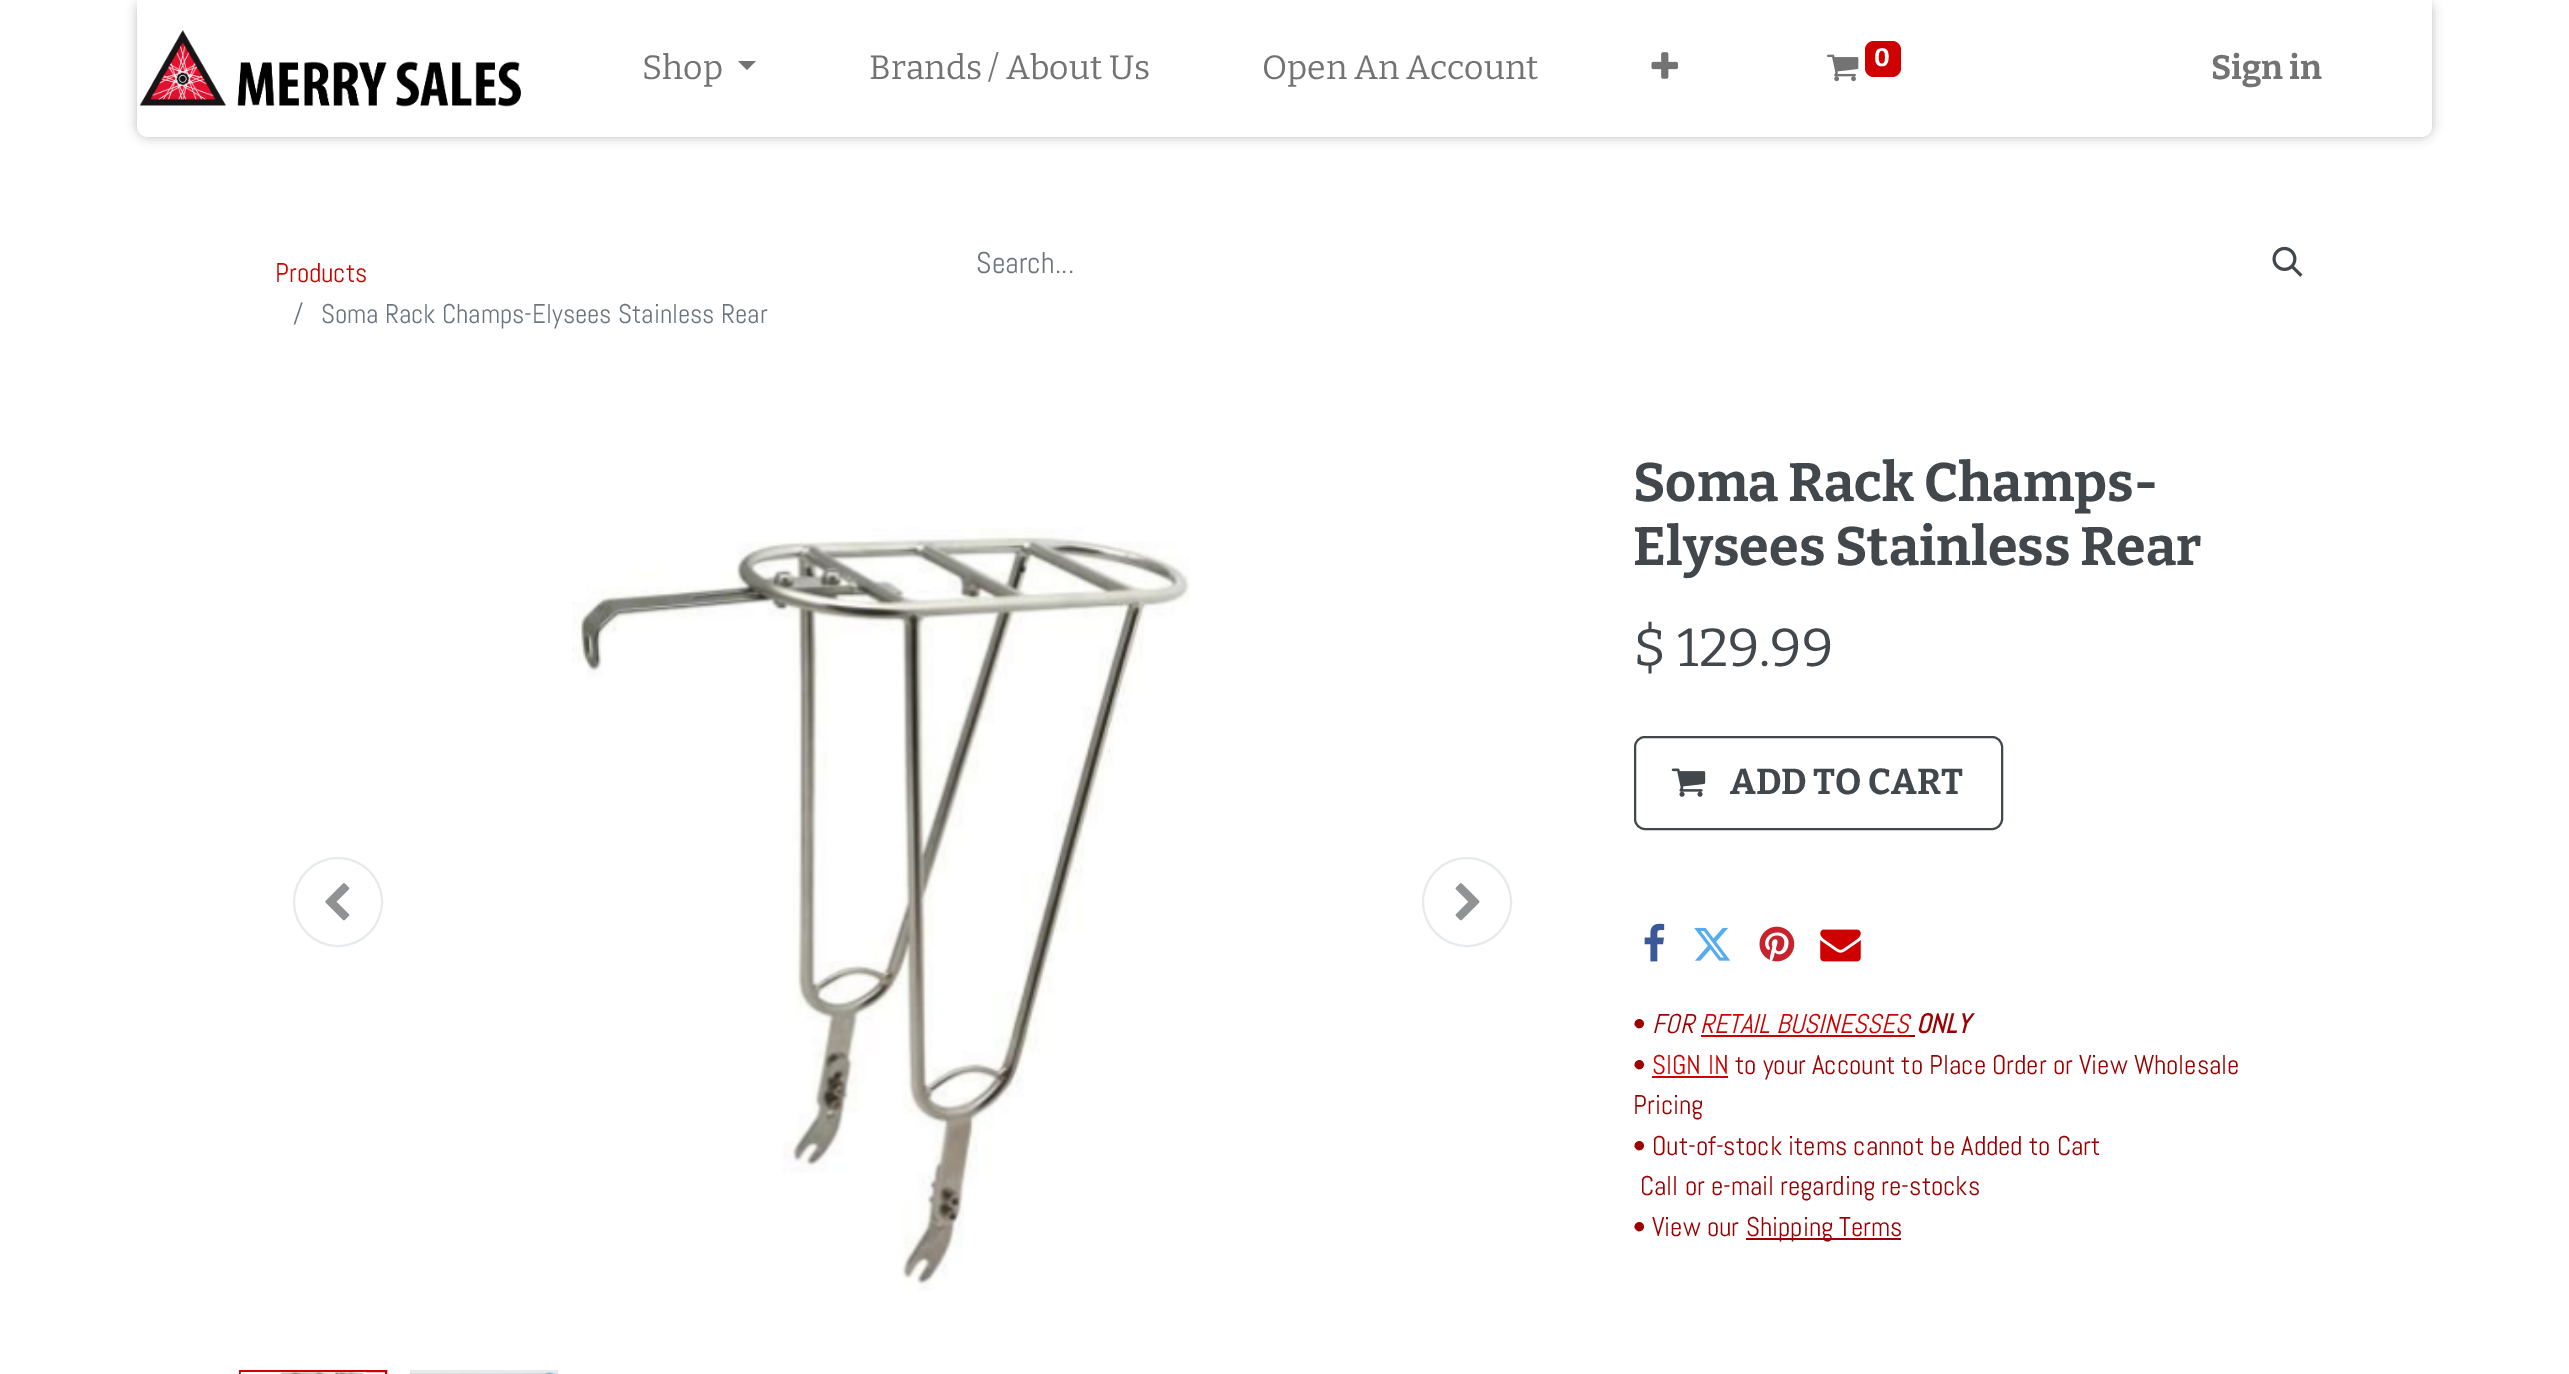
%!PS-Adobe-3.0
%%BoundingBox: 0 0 2569 1374
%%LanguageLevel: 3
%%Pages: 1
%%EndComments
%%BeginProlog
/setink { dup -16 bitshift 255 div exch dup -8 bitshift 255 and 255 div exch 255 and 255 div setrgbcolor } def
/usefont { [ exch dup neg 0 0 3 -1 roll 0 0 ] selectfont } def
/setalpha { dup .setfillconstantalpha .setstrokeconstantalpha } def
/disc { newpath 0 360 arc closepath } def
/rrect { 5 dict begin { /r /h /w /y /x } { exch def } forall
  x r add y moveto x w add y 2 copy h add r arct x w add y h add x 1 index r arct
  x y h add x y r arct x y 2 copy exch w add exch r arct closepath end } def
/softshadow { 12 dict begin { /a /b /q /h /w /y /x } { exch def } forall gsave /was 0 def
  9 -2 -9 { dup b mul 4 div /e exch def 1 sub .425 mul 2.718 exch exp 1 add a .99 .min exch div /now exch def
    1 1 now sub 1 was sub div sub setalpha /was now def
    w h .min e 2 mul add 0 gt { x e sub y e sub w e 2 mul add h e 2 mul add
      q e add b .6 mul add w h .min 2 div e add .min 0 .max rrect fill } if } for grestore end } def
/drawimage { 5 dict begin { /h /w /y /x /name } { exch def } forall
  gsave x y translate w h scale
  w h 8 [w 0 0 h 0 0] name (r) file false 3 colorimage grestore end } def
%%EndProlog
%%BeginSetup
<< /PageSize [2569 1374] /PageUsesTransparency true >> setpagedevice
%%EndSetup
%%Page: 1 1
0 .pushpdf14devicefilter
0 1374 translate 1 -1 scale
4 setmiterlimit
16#FFFFFF setink
0 0 2569 1374 rectfill
16#000000 setink
137 0 2295 137 11 5.5 0.25 softshadow
16#FFFFFF setink
137 0 moveto 2432 0 lineto 2432 126 lineto 2432 132 2427 137 2421 137 curveto 148 137 lineto 142 137 137 132 137 126 curveto closepath fill
(img1.raw) 139 30 382 77 drawimage
/Bitter-Regular 33.75 usefont
16#737373 setink
642 79 moveto (Shop) show
738 61 moveto 756 61 lineto 747 70 lineto closepath fill
869 79 moveto (Brands / About Us) show
1262 79 moveto (Open An Account) show
(img2.raw) 1651 52 27 27 drawimage
(img3.raw) 1827 54 32 28 drawimage
16#CE0000 setink
1865 41 36 36 9 rrect fill
/Bitter-Bold 25 usefont
16#FFFFFF setink
1874 66 moveto (0) show
/Bitter-Bold 33.75 usefont
16#737373 setink
2211 79 moveto (Sign in) show
/Abel-Regular 27 usefont
16#CE0000 setink
275 282 moveto (Products) show
16#6C757D setink
293 323 moveto (/) show
321 323 moveto (Soma Rack Champs-Elysees Stainless Rear) show
/Abel-Regular 30 usefont
976 273 moveto (Search...) show
(img4.raw) 2272 246 31 31 drawimage
16#E7EAED setink
2 setlinewidth
338 902 44 disc stroke
(img5.raw) 325 883 25 38 drawimage
(img6.raw) 572 527 618 764 drawimage
1467 902 44 disc stroke
(img7.raw) 1455 883 25 38 drawimage
16#CE0000 setink
240 1371 146 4 rectstroke
(img8.raw) 240 1372 126 2 drawimage
16#E7EAED setink
411 1371 146 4 rectstroke
(img9.raw) 411 1372 145 2 drawimage
/Bitter-Bold 54 usefont
16#42474C setink
1633 501 moveto (Soma Rack Champs-) show
1633 565 moveto (Elysees Stainless Rear) show
/Bitter-Regular 53.5 usefont
1633 666 moveto ($ 129.99) show
1635 737 367 92 10 rrect stroke
(img10.raw) 1671 768 35 29 drawimage
/Bitter-Bold 36 usefont
1730 794 moveto (ADD TO CART) show
(img11.raw) 1644 923 21 39 drawimage
(img12.raw) 1694 927 37 34 drawimage
(img13.raw) 1759 926 36 36 drawimage
(img14.raw) 1820 929 41 33 drawimage
/Abel-Regular 27 usefont
16#9C0000 setink
1633 1033 moveto (•) show
/Abel-Italic 27 usefont
1652 1033 moveto (FOR) show
16#CE0000 setink
1700 1033 moveto (RETAIL BUSINESSES) show
1701 1035 209 2 rectfill
16#9C0000 setink
1910 1035 5 2 rectfill
/Abel-BoldItalic 27 usefont
1916 1033 moveto (ONLY) show
/Abel-Regular 27 usefont
1633 1074 moveto (•) show
16#CE0000 setink
1652 1074 moveto (SIGN IN) show
1652 1076 76 2 rectfill
16#9C0000 setink
[
    [(to your Account to Place Order or View Wholesale) 1735 1074]
    [(Pricing) 1633 1114]
    [(• Out-of-stock items cannot be Added to Cart) 1633 1155]
    [(Call or e-mail regarding re-stocks) 1640 1195]
    [(• View our) 1633 1236]
] { aload pop moveto show } forall
1746 1238 155 2 rectfill
1746 1236 moveto (Shipping Terms) show
.poppdf14devicefilter showpage
%%EOF
